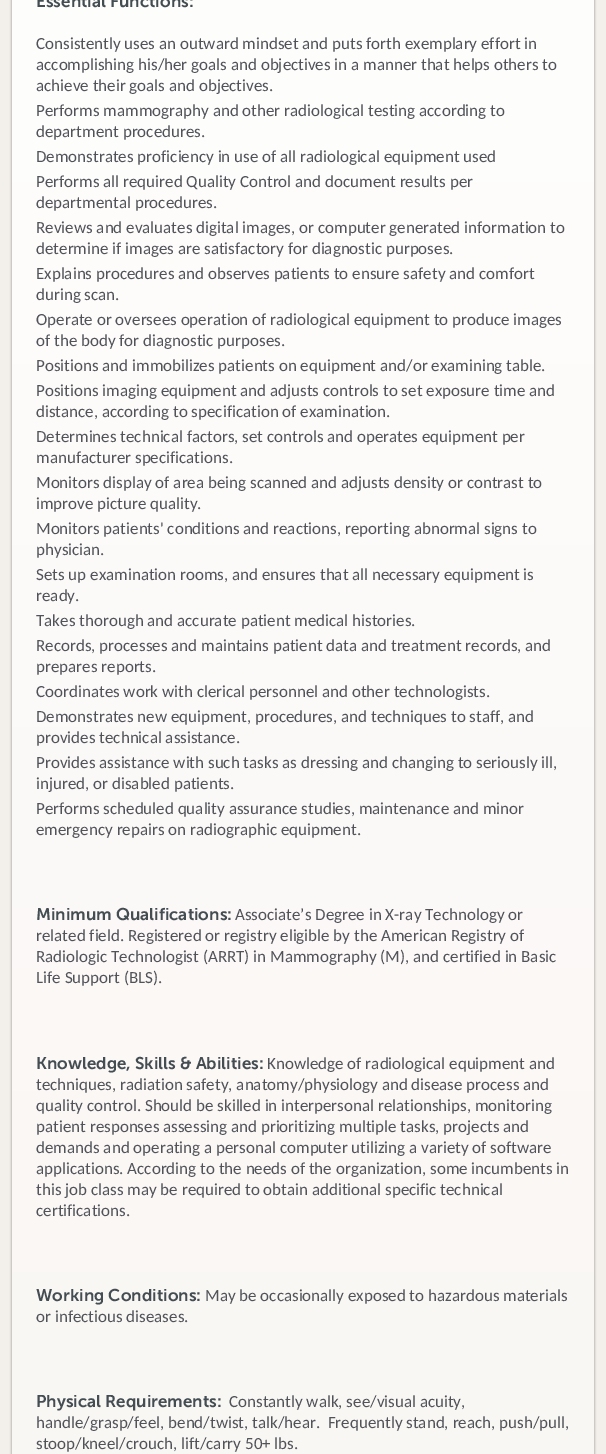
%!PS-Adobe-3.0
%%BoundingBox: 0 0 606 1454
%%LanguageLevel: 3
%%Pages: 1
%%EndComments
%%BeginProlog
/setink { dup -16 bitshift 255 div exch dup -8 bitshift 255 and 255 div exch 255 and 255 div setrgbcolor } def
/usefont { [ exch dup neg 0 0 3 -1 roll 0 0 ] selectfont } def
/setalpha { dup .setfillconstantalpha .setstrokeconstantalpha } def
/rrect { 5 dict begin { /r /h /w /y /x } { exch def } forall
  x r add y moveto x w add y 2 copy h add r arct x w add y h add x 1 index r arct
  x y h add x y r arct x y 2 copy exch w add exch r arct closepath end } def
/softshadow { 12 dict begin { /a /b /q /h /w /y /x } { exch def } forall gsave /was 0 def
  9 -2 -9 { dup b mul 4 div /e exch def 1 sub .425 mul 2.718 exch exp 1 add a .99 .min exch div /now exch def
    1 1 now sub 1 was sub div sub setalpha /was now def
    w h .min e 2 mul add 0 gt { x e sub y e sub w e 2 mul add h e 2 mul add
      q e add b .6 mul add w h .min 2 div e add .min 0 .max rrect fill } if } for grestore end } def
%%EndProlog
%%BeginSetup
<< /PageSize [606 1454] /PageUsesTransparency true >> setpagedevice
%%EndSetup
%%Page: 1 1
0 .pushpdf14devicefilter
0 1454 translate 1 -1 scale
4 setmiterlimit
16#F3F0EC setink
0 0 606 1454 rectfill
16#B7B7B7 setink
11 -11 584 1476 8 1 1 softshadow
gsave 19 -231 moveto 594 -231 lineto 594 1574 lineto 594 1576 592 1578 590 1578 curveto 16 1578 lineto 14 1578 12 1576 12 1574 curveto 12 -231 lineto closepath clip newpath
<< /ShadingType 2 /ColorSpace /DeviceRGB /Coords [303 -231 303 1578] /Extend [true true] /Function << /FunctionType 2 /Domain [0 1] /C0 [1 1 1] /C1 [0.976 0.965 0.953] /N 1 >> >> shfill grestore
16#CDCAC3 setink
595 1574 moveto 595 -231 lineto 594 -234 lineto 594 -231 lineto 594 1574 lineto 594 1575 594 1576 593 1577 curveto 594 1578 lineto 594 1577 595 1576 595 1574 curveto closepath fill
11 -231 moveto 11 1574 lineto 11 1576 12 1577 12 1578 curveto 13 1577 lineto 12 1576 12 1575 12 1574 curveto 12 -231 lineto 12 -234 lineto closepath fill
/MuseoSans-SemiBold 17 usefont
16#444D52 setink
36 7 moveto (Essential Functions:) show
/Carlito-Regular 17 usefont
16#515359 setink
[
    [(Consistently uses an outward mindset and puts forth exemplary effort in) 36 49]
    [(accomplishing his/her goals and objectives in a manner that helps others to) 36 70]
    [(achieve their goals and objectives.) 36 91]
    [(Performs mammography and other radiological testing according to) 36 116]
    [(department procedures.) 36 137]
    [(Demonstrates proficiency in use of all radiological equipment used) 36 162]
    [(Performs all required Quality Control and document results per) 36 187]
    [(departmental procedures.) 36 208]
    [(Reviews and evaluates digital images, or computer generated information to) 36 233]
    [(determine if images are satisfactory for diagnostic purposes.) 36 254]
    [(Explains procedures and observes patients to ensure safety and comfort) 36 279]
    [(during scan.) 36 300]
    [(Operate or oversees operation of radiological equipment to produce images) 36 325]
    [(of the body for diagnostic purposes.) 36 346]
    [(Positions and immobilizes patients on equipment and/or examining table.) 36 371]
    [(Positions imaging equipment and adjusts controls to set exposure time and) 36 396]
    [(distance, according to specification of examination.) 36 417]
    [(Determines technical factors, set controls and operates equipment per) 36 442]
    [(manufacturer specifications.) 36 463]
    [(Monitors display of area being scanned and adjusts density or contrast to) 36 488]
    [(improve picture quality.) 36 509]
    [(Monitors patients' conditions and reactions, reporting abnormal signs to) 36 534]
    [(physician.) 36 555]
    [(Sets up examination rooms, and ensures that all necessary equipment is) 36 580]
    [(ready.) 36 601]
    [(Takes thorough and accurate patient medical histories.) 36 626]
    [(Records, processes and maintains patient data and treatment records, and) 36 651]
    [(prepares reports.) 36 672]
    [(Coordinates work with clerical personnel and other technologists.) 36 697]
    [(Demonstrates new equipment, procedures, and techniques to staff, and) 36 722]
    [(provides technical assistance.) 36 743]
    [(Provides assistance with such tasks as dressing and changing to seriously ill,) 36 768]
    [(injured, or disabled patients.) 36 789]
    [(Performs scheduled quality assurance studies, maintenance and minor) 36 814]
    [(emergency repairs on radiographic equipment.) 36 835]
] { aload pop moveto show } forall
/MuseoSans-SemiBold 17 usefont
16#444D52 setink
36 920 moveto (Minimum Qualifications:) show
/Carlito-Regular 17 usefont
16#515359 setink
[
    [(Associate’s Degree in X-ray Technology or) 235 920]
    [(related field. Registered or registry eligible by the American Registry of) 36 941]
    [(Radiologic Technologist \(ARRT\) in Mammography \(M\), and certified in Basic) 36 962]
    [(Life Support \(BLS\).) 36 983]
] { aload pop moveto show } forall
/MuseoSans-SemiBold 17 usefont
16#444D52 setink
36 1069 moveto (Knowledge, Skills & Abilities:) show
/Carlito-Regular 17 usefont
16#515359 setink
[
    [(Knowledge of radiological equipment and) 267 1069]
    [(techniques, radiation safety, anatomy/physiology and disease process and) 36 1090]
    [(quality control. Should be skilled in interpersonal relationships, monitoring) 36 1111]
    [(patient responses assessing and prioritizing multiple tasks, projects and) 36 1132]
    [(demands and operating a personal computer utilizing a variety of software) 36 1153]
    [(applications. According to the needs of the organization, some incumbents in) 36 1174]
    [(this job class may be required to obtain additional specific technical) 36 1195]
    [(certifications.) 36 1216]
] { aload pop moveto show } forall
/MuseoSans-SemiBold 17 usefont
16#444D52 setink
36 1301 moveto (Working Conditions:) show
/Carlito-Regular 17 usefont
16#515359 setink
205 1301 moveto (May be occasionally exposed to hazardous materials) show
36 1322 moveto (or infectious diseases.) show
/MuseoSans-SemiBold 17 usefont
16#444D52 setink
36 1407 moveto (Physical Requirements:) show
/Carlito-Regular 17 usefont
16#515359 setink
[
    [(Constantly walk, see/visual acuity,) 229 1407]
    [(handle/grasp/feel, bend/twist, talk/hear.  Frequently stand, reach, push/pull,) 36 1428]
    [(stoop/kneel/crouch, lift/carry 50+ lbs.) 36 1449]
] { aload pop moveto show } forall
.poppdf14devicefilter showpage
%%EOF
